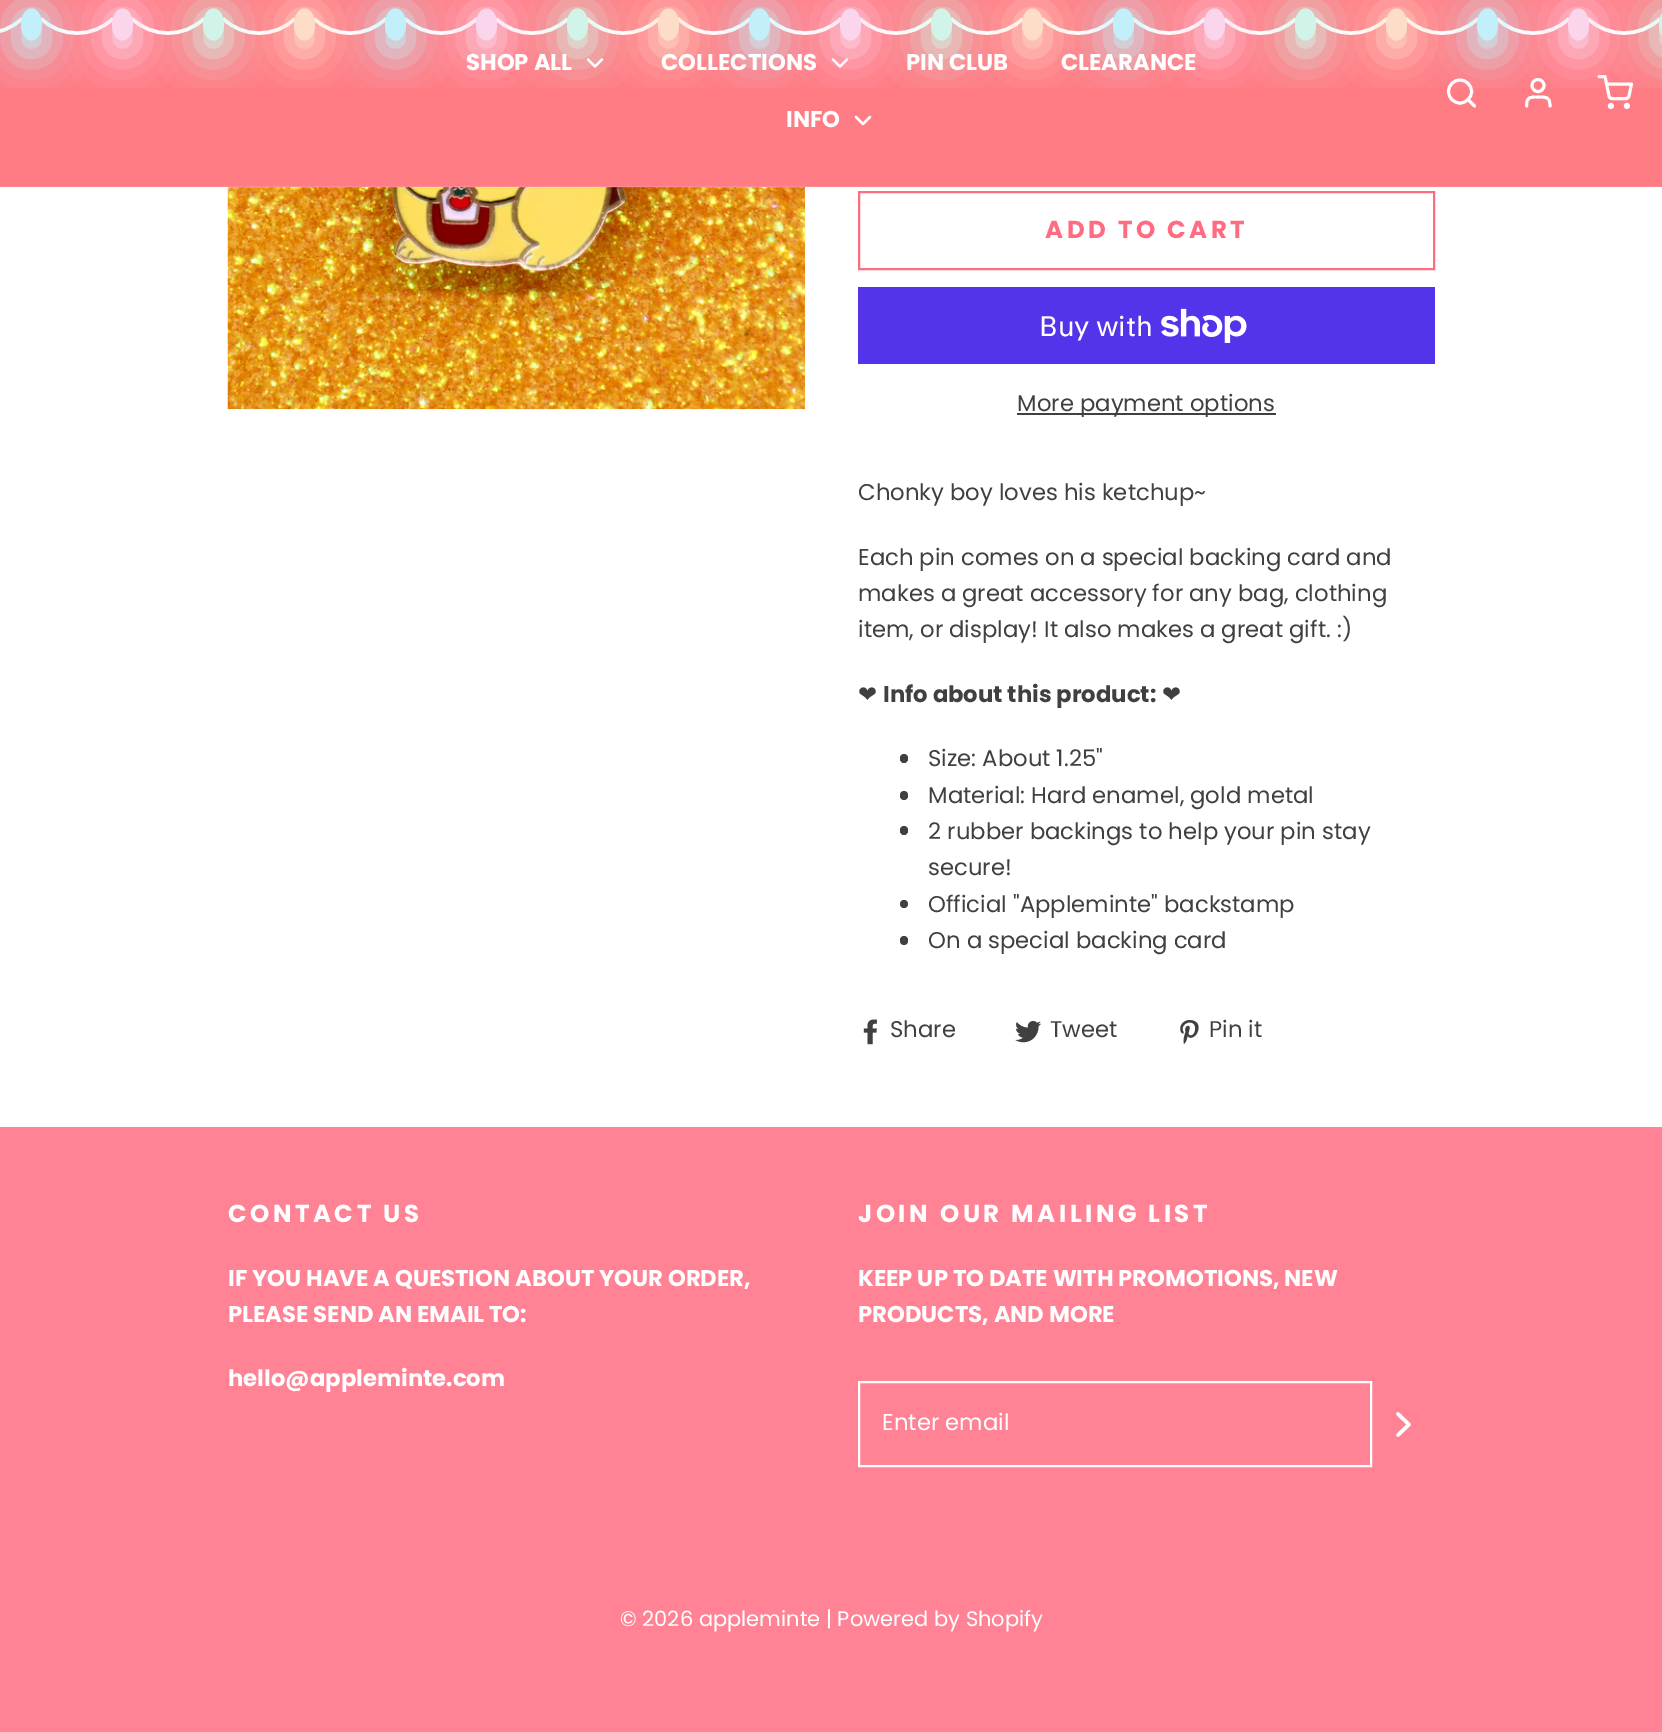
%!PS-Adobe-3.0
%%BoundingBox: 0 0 1662 1732
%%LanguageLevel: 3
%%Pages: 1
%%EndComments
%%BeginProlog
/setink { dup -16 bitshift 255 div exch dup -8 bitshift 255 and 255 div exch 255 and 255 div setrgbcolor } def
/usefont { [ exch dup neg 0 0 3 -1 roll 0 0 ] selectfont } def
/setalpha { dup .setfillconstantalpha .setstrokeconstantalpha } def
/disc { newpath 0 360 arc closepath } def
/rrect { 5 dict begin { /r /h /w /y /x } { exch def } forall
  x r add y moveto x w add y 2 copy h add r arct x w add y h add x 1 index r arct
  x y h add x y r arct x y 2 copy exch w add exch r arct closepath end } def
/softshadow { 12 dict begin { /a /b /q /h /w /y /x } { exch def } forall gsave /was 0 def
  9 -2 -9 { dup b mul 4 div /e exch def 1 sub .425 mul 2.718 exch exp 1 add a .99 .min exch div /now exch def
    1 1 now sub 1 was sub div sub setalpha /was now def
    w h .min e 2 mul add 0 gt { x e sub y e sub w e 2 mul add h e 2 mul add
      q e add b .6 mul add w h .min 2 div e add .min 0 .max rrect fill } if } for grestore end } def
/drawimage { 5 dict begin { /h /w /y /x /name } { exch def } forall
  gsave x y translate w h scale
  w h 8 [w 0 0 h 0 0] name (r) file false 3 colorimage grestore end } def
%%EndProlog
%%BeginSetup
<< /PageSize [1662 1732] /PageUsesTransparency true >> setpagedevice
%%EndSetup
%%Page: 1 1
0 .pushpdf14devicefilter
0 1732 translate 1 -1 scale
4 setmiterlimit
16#FFFFFF setink
0 0 1662 1732 rectfill
16#FF7C85 setink
0 0 1662 187 rectfill
16#FFFFFF setink
3.5 setlinewidth
113 18.5 moveto 93.5 38 60.5 38 41 18.5 curveto stroke
22 18.5 moveto 2.5 38 -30.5 38 -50 18.5 curveto stroke
gsave
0 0 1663 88 rectclip
16#C2EFF9 setink
16 12 31 42 15.5 21 1 softshadow
grestore
16#C2EFF9 setink
31.5 8.5 moveto 37.5 8.5 42 15.5 42 24.5 curveto 42 33.5 37.5 40.5 31.5 40.5 curveto 25.5 40.5 21 33.5 21 24.5 curveto 21 15.5 25.5 8.5 31.5 8.5 curveto closepath fill
16#FFFFFF setink
204 18.5 moveto 184.5 38 151.5 38 132 18.5 curveto stroke
gsave
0 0 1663 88 rectclip
16#FBD5EB setink
107 12 31 42 15.5 21 1 softshadow
grestore
16#FBD5EB setink
122.5 8.5 moveto 128.5 8.5 133 15.5 133 24.5 curveto 133 33.5 128.5 40.5 122.5 40.5 curveto 116.5 40.5 112 33.5 112 24.5 curveto 112 15.5 116.5 8.5 122.5 8.5 curveto closepath fill
16#FFFFFF setink
295 18.5 moveto 275.5 38 242.5 38 223 18.5 curveto stroke
gsave
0 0 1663 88 rectclip
16#D1F4E8 setink
198 12 31 42 15.5 21 1 softshadow
grestore
16#D1F4E8 setink
213.5 8.5 moveto 219.5 8.5 224 15.5 224 24.5 curveto 224 33.5 219.5 40.5 213.5 40.5 curveto 207.5 40.5 203 33.5 203 24.5 curveto 203 15.5 207.5 8.5 213.5 8.5 curveto closepath fill
16#FFFFFF setink
386 18.5 moveto 366.5 38 333.5 38 314 18.5 curveto stroke
gsave
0 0 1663 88 rectclip
16#FDDDC8 setink
289 12 31 42 15.5 21 1 softshadow
grestore
16#FDDDC8 setink
304.5 8.5 moveto 310.5 8.5 315 15.5 315 24.5 curveto 315 33.5 310.5 40.5 304.5 40.5 curveto 298.5 40.5 294 33.5 294 24.5 curveto 294 15.5 298.5 8.5 304.5 8.5 curveto closepath fill
16#FFFFFF setink
477 18.5 moveto 457.5 38 424.5 38 405 18.5 curveto stroke
gsave
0 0 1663 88 rectclip
16#C2EFF9 setink
380 12 31 42 15.5 21 1 softshadow
grestore
16#C2EFF9 setink
395.5 8.5 moveto 401.5 8.5 406 15.5 406 24.5 curveto 406 33.5 401.5 40.5 395.5 40.5 curveto 389.5 40.5 385 33.5 385 24.5 curveto 385 15.5 389.5 8.5 395.5 8.5 curveto closepath fill
16#FFFFFF setink
568 18.5 moveto 548.5 38 515.5 38 496 18.5 curveto stroke
gsave
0 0 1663 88 rectclip
16#FBD5EB setink
471 12 31 42 15.5 21 1 softshadow
grestore
16#FBD5EB setink
486.5 8.5 moveto 492.5 8.5 497 15.5 497 24.5 curveto 497 33.5 492.5 40.5 486.5 40.5 curveto 480.5 40.5 476 33.5 476 24.5 curveto 476 15.5 480.5 8.5 486.5 8.5 curveto closepath fill
16#FFFFFF setink
659 18.5 moveto 639.5 38 606.5 38 587 18.5 curveto stroke
2.3 setlinewidth
1 setlinecap
1 setlinejoin
588 59.5 moveto 595 66.5 lineto 602 59.5 lineto stroke
gsave
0 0 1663 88 rectclip
16#D1F4E8 setink
562 12 31 42 15.5 21 1 softshadow
grestore
16#D1F4E8 setink
577.5 8.5 moveto 583.5 8.5 588 15.5 588 24.5 curveto 588 33.5 583.5 40.5 577.5 40.5 curveto 571.5 40.5 567 33.5 567 24.5 curveto 567 15.5 571.5 8.5 577.5 8.5 curveto closepath fill
16#FFFFFF setink
3.5 setlinewidth
0 setlinecap
0 setlinejoin
750 18.5 moveto 730.5 38 697.5 38 678 18.5 curveto stroke
gsave
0 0 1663 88 rectclip
16#FDDDC8 setink
653 12 31 42 15.5 21 1 softshadow
grestore
16#FDDDC8 setink
668.5 8.5 moveto 674.5 8.5 679 15.5 679 24.5 curveto 679 33.5 674.5 40.5 668.5 40.5 curveto 662.5 40.5 658 33.5 658 24.5 curveto 658 15.5 662.5 8.5 668.5 8.5 curveto closepath fill
16#FFFFFF setink
841 18.5 moveto 821.5 38 788.5 38 769 18.5 curveto stroke
2.3 setlinewidth
1 setlinecap
1 setlinejoin
833 59.5 moveto 840 66.5 lineto 847 59.5 lineto stroke
gsave
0 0 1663 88 rectclip
16#C2EFF9 setink
744 12 31 42 15.5 21 1 softshadow
grestore
16#C2EFF9 setink
759.5 8.5 moveto 765.5 8.5 770 15.5 770 24.5 curveto 770 33.5 765.5 40.5 759.5 40.5 curveto 753.5 40.5 749 33.5 749 24.5 curveto 749 15.5 753.5 8.5 759.5 8.5 curveto closepath fill
16#FFFFFF setink
3.5 setlinewidth
0 setlinecap
0 setlinejoin
932 18.5 moveto 912.5 38 879.5 38 860 18.5 curveto stroke
2.3 setlinewidth
1 setlinecap
1 setlinejoin
856 117 moveto 863 124 lineto 870 117 lineto stroke
gsave
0 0 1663 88 rectclip
16#FBD5EB setink
835 12 31 42 15.5 21 1 softshadow
grestore
16#FBD5EB setink
850.5 8.5 moveto 856.5 8.5 861 15.5 861 24.5 curveto 861 33.5 856.5 40.5 850.5 40.5 curveto 844.5 40.5 840 33.5 840 24.5 curveto 840 15.5 844.5 8.5 850.5 8.5 curveto closepath fill
16#FFFFFF setink
3.5 setlinewidth
0 setlinecap
0 setlinejoin
1023 18.5 moveto 1003.5 38 970.5 38 951 18.5 curveto stroke
gsave
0 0 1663 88 rectclip
16#D1F4E8 setink
926 12 31 42 15.5 21 1 softshadow
grestore
16#D1F4E8 setink
941.5 8.5 moveto 947.5 8.5 952 15.5 952 24.5 curveto 952 33.5 947.5 40.5 941.5 40.5 curveto 935.5 40.5 931 33.5 931 24.5 curveto 931 15.5 935.5 8.5 941.5 8.5 curveto closepath fill
16#FFFFFF setink
1114 18.5 moveto 1094.5 38 1061.5 38 1042 18.5 curveto stroke
gsave
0 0 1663 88 rectclip
16#FDDDC8 setink
1017 12 31 42 15.5 21 1 softshadow
grestore
16#FDDDC8 setink
1032.5 8.5 moveto 1038.5 8.5 1043 15.5 1043 24.5 curveto 1043 33.5 1038.5 40.5 1032.5 40.5 curveto 1026.5 40.5 1022 33.5 1022 24.5 curveto 1022 15.5 1026.5 8.5 1032.5 8.5 curveto closepath fill
16#FFFFFF setink
1205 18.5 moveto 1185.5 38 1152.5 38 1133 18.5 curveto stroke
gsave
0 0 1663 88 rectclip
16#C2EFF9 setink
1108 12 31 42 15.5 21 1 softshadow
grestore
16#C2EFF9 setink
1123.5 8.5 moveto 1129.5 8.5 1134 15.5 1134 24.5 curveto 1134 33.5 1129.5 40.5 1123.5 40.5 curveto 1117.5 40.5 1113 33.5 1113 24.5 curveto 1113 15.5 1117.5 8.5 1123.5 8.5 curveto closepath fill
16#FFFFFF setink
1296 18.5 moveto 1276.5 38 1243.5 38 1224 18.5 curveto stroke
gsave
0 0 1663 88 rectclip
16#FBD5EB setink
1199 12 31 42 15.5 21 1 softshadow
grestore
16#FBD5EB setink
1214.5 8.5 moveto 1220.5 8.5 1225 15.5 1225 24.5 curveto 1225 33.5 1220.5 40.5 1214.5 40.5 curveto 1208.5 40.5 1204 33.5 1204 24.5 curveto 1204 15.5 1208.5 8.5 1214.5 8.5 curveto closepath fill
16#FFFFFF setink
1387 18.5 moveto 1367.5 38 1334.5 38 1315 18.5 curveto stroke
gsave
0 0 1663 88 rectclip
16#D1F4E8 setink
1290 12 31 42 15.5 21 1 softshadow
grestore
16#D1F4E8 setink
1305.5 8.5 moveto 1311.5 8.5 1316 15.5 1316 24.5 curveto 1316 33.5 1311.5 40.5 1305.5 40.5 curveto 1299.5 40.5 1295 33.5 1295 24.5 curveto 1295 15.5 1299.5 8.5 1305.5 8.5 curveto closepath fill
16#FFFFFF setink
1478 18.5 moveto 1458.5 38 1425.5 38 1406 18.5 curveto stroke
2.9 setlinewidth
1460 91.5 11.5 disc stroke
1 setlinecap
1 setlinejoin
1474.5 106 moveto 1468 99.5 lineto stroke
gsave
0 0 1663 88 rectclip
16#FDDDC8 setink
1381 12 31 42 15.5 21 1 softshadow
grestore
16#FDDDC8 setink
1396.5 8.5 moveto 1402.5 8.5 1407 15.5 1407 24.5 curveto 1407 33.5 1402.5 40.5 1396.5 40.5 curveto 1390.5 40.5 1386 33.5 1386 24.5 curveto 1386 15.5 1390.5 8.5 1396.5 8.5 curveto closepath fill
16#FFFFFF setink
3.5 setlinewidth
0 setlinecap
0 setlinejoin
1569 18.5 moveto 1549.5 38 1516.5 38 1497 18.5 curveto stroke
2.9 setlinewidth
1538 85.5 6 disc stroke
1 setlinecap
1 setlinejoin
1550 106 moveto 1550 96.5 1546.5 97 1538 97 curveto 1530 97 1526.5 96.5 1526.5 106 curveto stroke
gsave
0 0 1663 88 rectclip
16#C2EFF9 setink
1472 12 31 42 15.5 21 1 softshadow
grestore
16#C2EFF9 setink
1487.5 8.5 moveto 1493.5 8.5 1498 15.5 1498 24.5 curveto 1498 33.5 1493.5 40.5 1487.5 40.5 curveto 1481.5 40.5 1477 33.5 1477 24.5 curveto 1477 15.5 1481.5 8.5 1487.5 8.5 curveto closepath fill
16#FFFFFF setink
3.5 setlinewidth
0 setlinecap
0 setlinejoin
1660 18.5 moveto 1640.5 38 1607.5 38 1588 18.5 curveto stroke
2.9 setlinewidth
1 setlinecap
1 setlinejoin
1599 76.5 moveto 1605 76.5 lineto 1609 96 lineto 1609 97.5 1610.5 98.5 1612 98.5 curveto 1626 98.5 lineto 1627.5 98.5 1628.5 97.5 1629 96 curveto 1631.5 84 lineto 1606.5 84 lineto stroke
0 setlinecap
0 setlinejoin
1610.9 105.9 1.5 disc stroke
1626.9 105.9 1.5 disc stroke
gsave
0 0 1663 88 rectclip
16#FBD5EB setink
1563 12 31 42 15.5 21 1 softshadow
grestore
16#FBD5EB setink
1578.5 8.5 moveto 1584.5 8.5 1589 15.5 1589 24.5 curveto 1589 33.5 1584.5 40.5 1578.5 40.5 curveto 1572.5 40.5 1568 33.5 1568 24.5 curveto 1568 15.5 1572.5 8.5 1578.5 8.5 curveto closepath fill
gsave
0 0 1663 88 rectclip
16#D1F4E8 setink
1654 12 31 42 15.5 21 1 softshadow
grestore
16#D1F4E8 setink
1669.5 8.5 moveto 1675.5 8.5 1680 15.5 1680 24.5 curveto 1680 33.5 1675.5 40.5 1669.5 40.5 curveto 1663.5 40.5 1659 33.5 1659 24.5 curveto 1659 15.5 1663.5 8.5 1669.5 8.5 curveto closepath fill
(img1.raw) 227 187 578 223 drawimage
0.1 setalpha
16#FFFFFF setink
0 186 1662 2 rectfill
/Poppins-Bold 22.75 usefont
1 setalpha
[
    [(SHOP ALL) 466 70]
    [(COLLECTIONS) 661 70]
    [(PIN CLUB) 906 70]
    [(CLEARANCE) 1061 70]
    [(INFO) 786 127]
] { aload pop moveto show } forall
16#FF6B81 setink
2 setlinewidth
859 192 575 77 rectstroke
/Poppins-Bold 24.5 usefont
1045 238 moveto 3.5 0 (ADD TO CART) ashow
16#5433EB setink
858 287 577 77 rectfill
/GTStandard-Regular 28 usefont
16#FFFFFF setink
1039 336 moveto (Buy with) show
(img2.raw) 1161 308 86 35 drawimage
16#404040 setink
1017 413 259 2 rectfill
/Poppins-Regular 22.75 usefont
[
    [(More payment options) 1017 411]
    [(Chonky boy loves his ketchup~) 858 500]
    [(Each pin comes on a special backing card and) 858 565]
    [(makes a great accessory for any bag, clothing) 858 601]
    [(item, or display! It also makes a great gift. :\)) 858 637]
] { aload pop moveto show } forall
/DejaVuSans-Regular 22.75 usefont
858 702 moveto (❤) show
/Poppins-Bold 22.75 usefont
883 702 moveto (Info about this product:) show
/DejaVuSans-Regular 22.75 usefont
1162 702 moveto (❤) show
900 754 8 9 4 rrect fill
/Poppins-Regular 22.75 usefont
928 766 moveto (Size: About 1.25") show
900 791 8 9 4 rrect fill
928 803 moveto (Material: Hard enamel, gold metal) show
900 826 8 9 4 rrect fill
928 839 moveto (2 rubber backings to help your pin stay) show
928 875 moveto (secure!) show
904 904 4 disc fill
928 912 moveto (Official "Appleminte" backstamp) show
900 936 8 9 4 rrect fill
928 948 moveto (On a special backing card) show
(img3.raw) 863 1019 14 26 drawimage
890 1037 moveto (Share) show
(img4.raw) 1015 1021 26 22 drawimage
1050 1037 moveto (Tweet) show
(img5.raw) 1180 1020 19 25 drawimage
1209 1037 moveto (Pin it) show
16#FF8295 setink
0 1127 1662 605 rectfill
/Poppins-Bold 24.5 usefont
16#FFFFFF setink
228 1222 moveto 3.5 0 (CONTACT US) ashow
/Poppins-Bold 22.75 usefont
[
    [(IF YOU HAVE A QUESTION ABOUT YOUR ORDER,) 228 1286]
    [(PLEASE SEND AN EMAIL TO:) 228 1322]
    [(hello@appleminte.com) 228 1386]
] { aload pop moveto show } forall
/Poppins-Bold 24.5 usefont
858 1222 moveto 3.5 0 (JOIN OUR MAILING LIST) ashow
/Poppins-Bold 22.75 usefont
858 1286 moveto (KEEP UP TO DATE WITH PROMOTIONS, NEW) show
858 1322 moveto (PRODUCTS, AND MORE) show
859 1382 512 84 rectstroke
/Poppins-Regular 22.75 usefont
882 1430 moveto (Enter email) show
3.5 setlinewidth
1 setlinecap
1 setlinejoin
1398 1435 moveto 1409 1424.5 lineto 1398 1414 lineto stroke
/Poppins-Regular 21 usefont
620 1626 moveto (© 2026 appleminte | Powered by Shopify) show
.poppdf14devicefilter showpage
%%EOF
